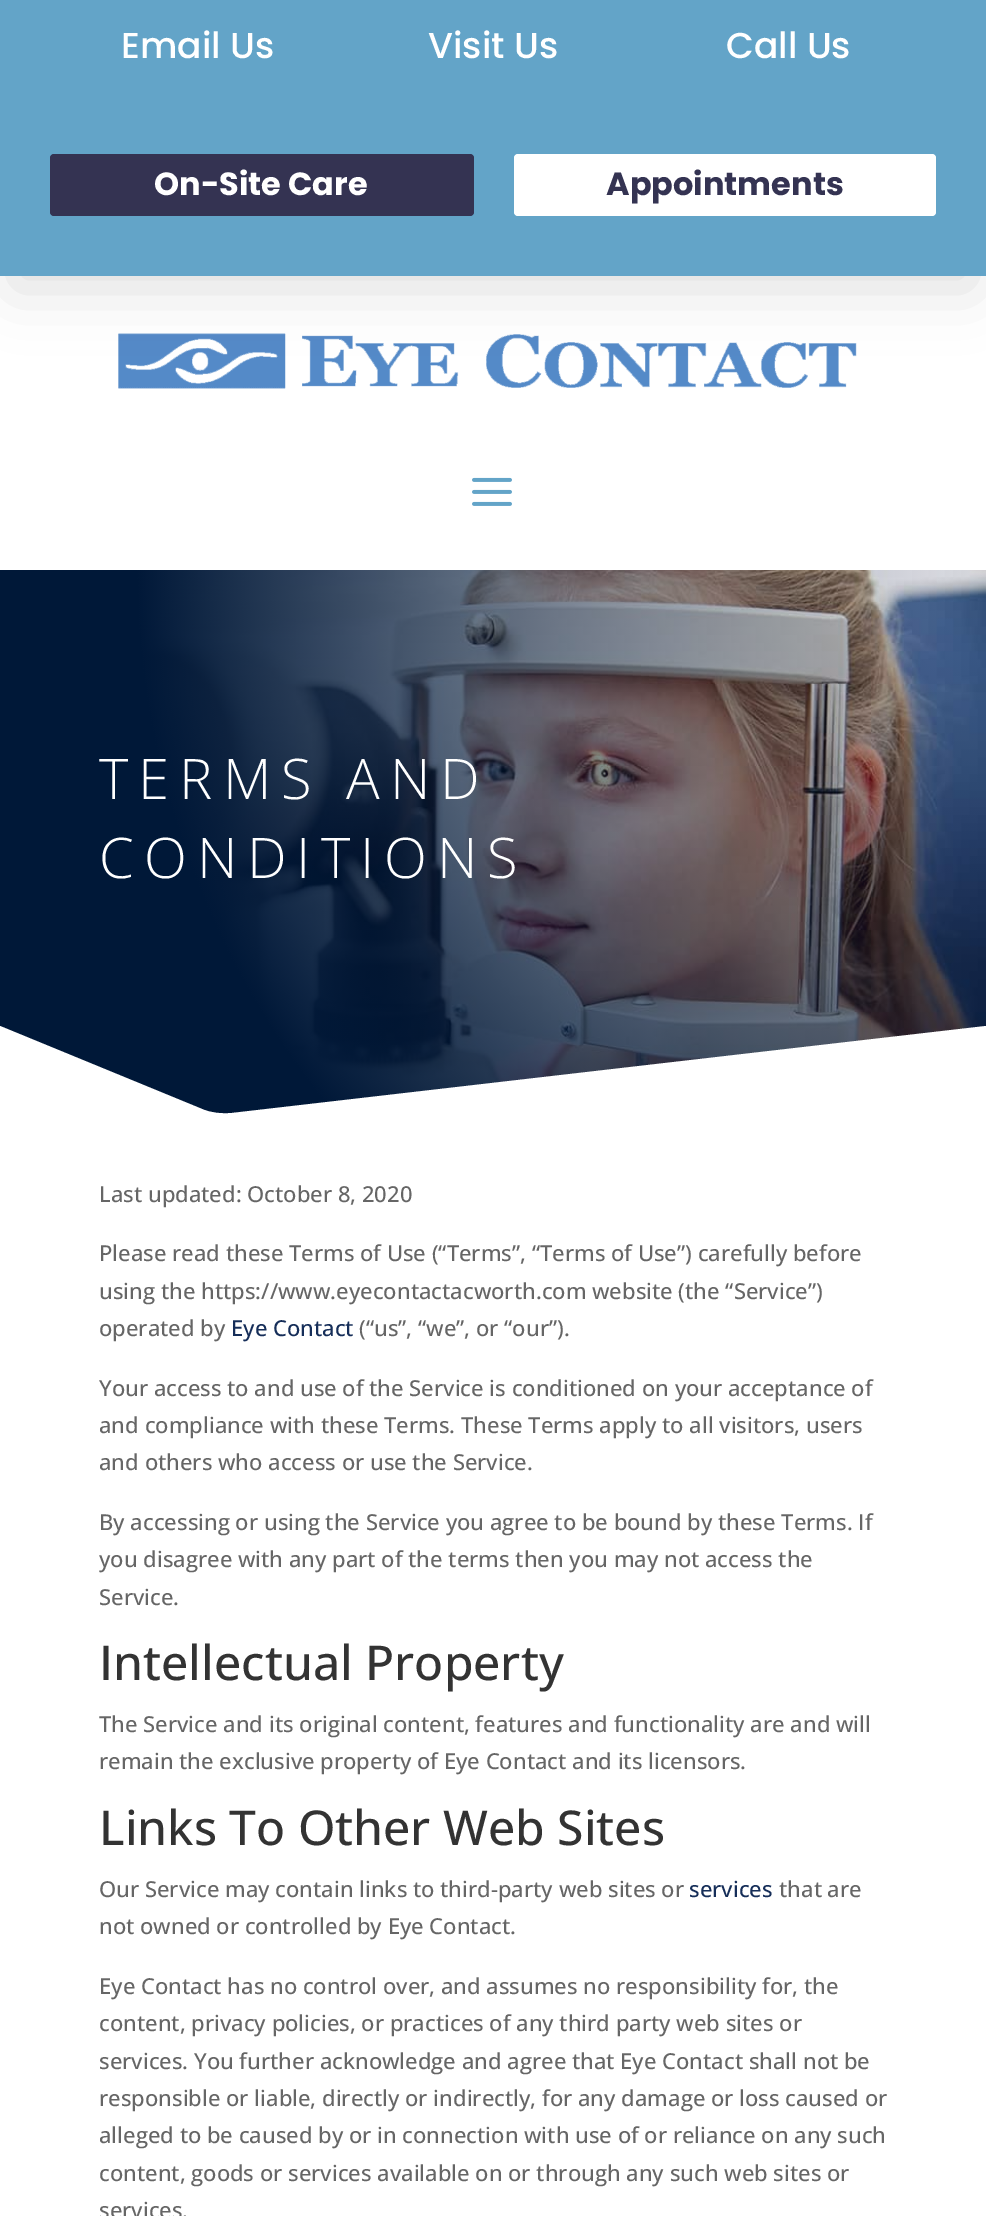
%!PS-Adobe-3.0
%%BoundingBox: 0 0 986 2216
%%LanguageLevel: 3
%%Pages: 1
%%EndComments
%%BeginProlog
/setink { dup -16 bitshift 255 div exch dup -8 bitshift 255 and 255 div exch 255 and 255 div setrgbcolor } def
/usefont { [ exch dup neg 0 0 3 -1 roll 0 0 ] selectfont } def
/setalpha { dup .setfillconstantalpha .setstrokeconstantalpha } def
/rrect { 5 dict begin { /r /h /w /y /x } { exch def } forall
  x r add y moveto x w add y 2 copy h add r arct x w add y h add x 1 index r arct
  x y h add x y r arct x y 2 copy exch w add exch r arct closepath end } def
/softshadow { 12 dict begin { /a /b /q /h /w /y /x } { exch def } forall gsave /was 0 def
  9 -2 -9 { dup b mul 4 div /e exch def 1 sub .425 mul 2.718 exch exp 1 add a .99 .min exch div /now exch def
    1 1 now sub 1 was sub div sub setalpha /was now def
    w h .min e 2 mul add 0 gt { x e sub y e sub w e 2 mul add h e 2 mul add
      q e add b .6 mul add w h .min 2 div e add .min 0 .max rrect fill } if } for grestore end } def
/drawimage { 5 dict begin { /h /w /y /x /name } { exch def } forall
  gsave x y translate w h scale
  w h 8 [w 0 0 h 0 0] name (r) file false 3 colorimage grestore end } def
%%EndProlog
%%BeginSetup
<< /PageSize [986 2216] /PageUsesTransparency true >> setpagedevice
%%EndSetup
%%Page: 1 1
0 .pushpdf14devicefilter
0 2216 translate 1 -1 scale
4 setmiterlimit
16#FFFFFF setink
0 0 986 2216 rectfill
(img1.raw) 118 333 739 56 drawimage
16#000000 setink
12 36 962 252 0 30 0.14 softshadow
16#63A4C8 setink
0 0 986 276 rectfill
/Poppins-Medium 36 usefont
16#FFFFFF setink
[
    [(Email Us) 121 58]
    [(Visit Us) 428 58]
    [(Call Us) 726 58]
] { aload pop moveto show } forall
16#343352 setink
50 154 424 62 4 rrect fill
/Poppins-Bold 32 usefont
16#FFFFFF setink
154 195 moveto (On-Site Care) show
514 154 422 62 4 rrect fill
16#343352 setink
606 195 moveto (Appointments) show
(img2.raw) 472 477 40 29 drawimage
(img3.raw) 0 570 986 544 drawimage
/OpenSans-Light 56 usefont
16#FFFFFF setink
99 799 moveto 10 0 (TERMS AND) ashow
99 878 moveto 10 0 (CONDITIONS) ashow
0 1026 moveto 202 1109 lineto 211 1113 222 1114 232 1113 curveto 986 1026 lineto 986 1126 lineto 0 1126 lineto closepath fill
/OpenSans-Medium 22 usefont
16#666666 setink
[
    [(Last updated: October 8, 2020) 99 1202]
    [(Please read these Terms of Use \(“Terms”, “Terms of Use”\) carefully before) 99 1261]
    [(using the https://www.eyecontactacworth.com website \(the “Service”\)) 99 1299]
    [(operated by) 99 1336]
] { aload pop moveto show } forall
16#162E59 setink
231 1336 moveto (Eye Contact) show
16#666666 setink
[
    [(\(“us”, “we”, or “our”\).) 359 1336]
    [(Your access to and use of the Service is conditioned on your acceptance of) 99 1396]
    [(and compliance with these Terms. These Terms apply to all visitors, users) 99 1433]
    [(and others who access or use the Service.) 99 1470]
    [(By accessing or using the Service you agree to be bound by these Terms. If) 99 1530]
    [(you disagree with any part of the terms then you may not access the) 99 1567]
    [(Service.) 99 1605]
] { aload pop moveto show } forall
/OpenSans-Medium 48 usefont
16#333333 setink
99 1680 moveto (Intellectual Property) show
/OpenSans-Medium 22 usefont
16#666666 setink
99 1732 moveto (The Service and its original content, features and functionality are and will) show
99 1769 moveto (remain the exclusive property of Eye Contact and its licensors.) show
/OpenSans-Medium 48 usefont
16#333333 setink
99 1845 moveto (Links To Other Web Sites) show
/OpenSans-Medium 22 usefont
16#666666 setink
99 1897 moveto (Our Service may contain links to third-party web sites or) show
16#162E59 setink
689 1897 moveto (services) show
16#666666 setink
[
    [(that are) 779 1897]
    [(not owned or controlled by Eye Contact.) 99 1934]
    [(Eye Contact has no control over, and assumes no responsibility for, the) 99 1994]
    [(content, privacy policies, or practices of any third party web sites or) 99 2031]
    [(services. You further acknowledge and agree that Eye Contact shall not be) 99 2069]
    [(responsible or liable, directly or indirectly, for any damage or loss caused or) 99 2106]
    [(alleged to be caused by or in connection with use of or reliance on any such) 99 2143]
    [(content, goods or services available on or through any such web sites or) 99 2181]
    [(services.) 99 2218]
] { aload pop moveto show } forall
.poppdf14devicefilter showpage
%%EOF
